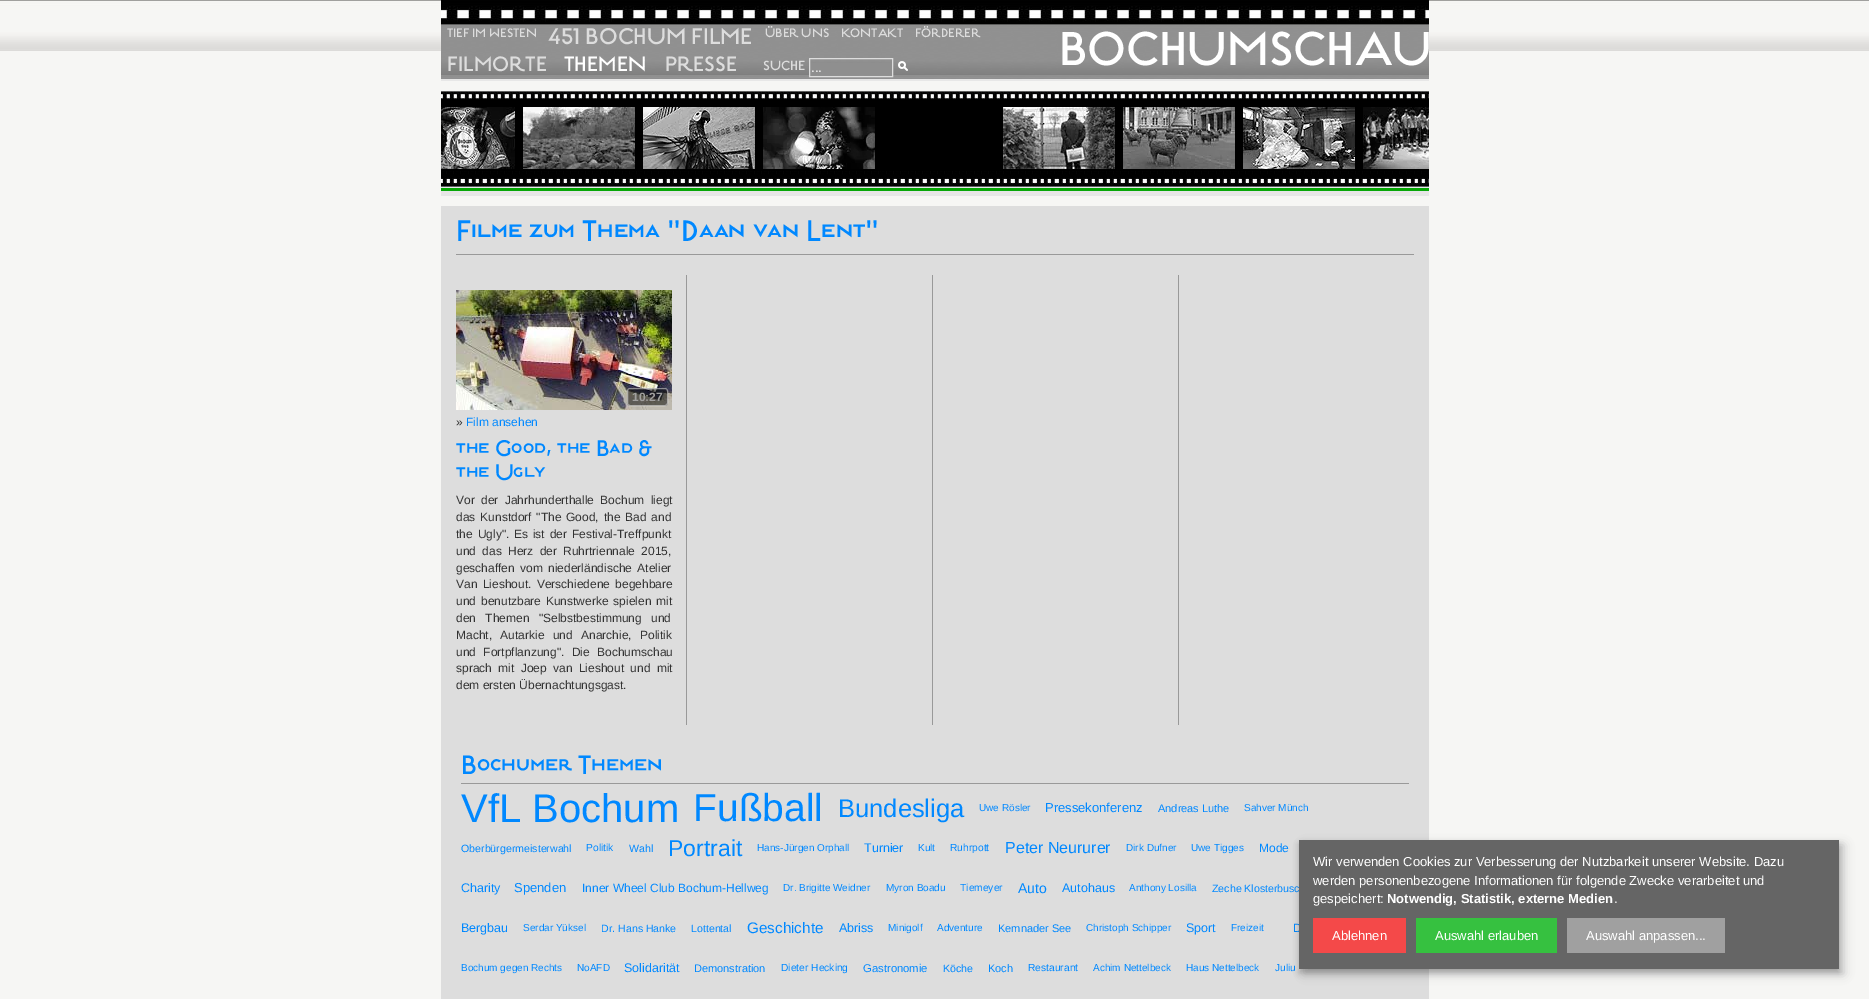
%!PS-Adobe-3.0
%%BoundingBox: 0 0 1869 999
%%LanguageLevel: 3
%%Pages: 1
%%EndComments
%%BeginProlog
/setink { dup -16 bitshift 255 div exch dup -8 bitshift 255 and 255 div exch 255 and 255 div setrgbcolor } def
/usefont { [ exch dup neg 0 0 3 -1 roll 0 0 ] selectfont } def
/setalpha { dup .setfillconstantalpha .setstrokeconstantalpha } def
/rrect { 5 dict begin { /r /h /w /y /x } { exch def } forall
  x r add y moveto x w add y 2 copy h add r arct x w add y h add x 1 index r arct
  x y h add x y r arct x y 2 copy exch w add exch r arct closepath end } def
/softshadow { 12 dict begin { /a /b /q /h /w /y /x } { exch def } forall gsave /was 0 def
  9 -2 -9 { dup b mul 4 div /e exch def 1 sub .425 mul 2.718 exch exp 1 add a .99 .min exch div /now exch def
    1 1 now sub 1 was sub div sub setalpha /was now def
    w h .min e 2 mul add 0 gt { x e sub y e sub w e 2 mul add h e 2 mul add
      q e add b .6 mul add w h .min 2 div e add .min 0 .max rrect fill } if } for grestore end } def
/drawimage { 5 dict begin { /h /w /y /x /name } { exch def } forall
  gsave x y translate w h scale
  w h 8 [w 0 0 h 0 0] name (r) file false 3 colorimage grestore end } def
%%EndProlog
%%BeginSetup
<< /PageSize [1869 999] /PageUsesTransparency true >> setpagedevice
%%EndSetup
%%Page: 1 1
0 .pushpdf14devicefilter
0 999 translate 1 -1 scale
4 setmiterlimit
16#F6F6F4 setink
0 0 1869 999 rectfill
(img1.raw) 0 0 1869 51 drawimage
(img2.raw) 441 0 988 81 drawimage
/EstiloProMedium-Medium 13 usefont
16#DDDDDD setink
447 37 moveto (TIEF IM WESTEN) show
/EstiloProMedium-Medium 24 usefont
548 44 moveto (451 BOCHUM FILME) show
/EstiloProMedium-Medium 13 usefont
[
    [(ÜBER UNS) 765 37]
    [(KONTAKT) 841 37]
    [(FÖRDERER) 915 37]
] { aload pop moveto show } forall
/EstiloProMedium-Medium 22 usefont
447 71 moveto (FILMORTE) show
16#FFFFFF setink
564 71 moveto (THEMEN) show
16#DDDDDD setink
665 71 moveto (PRESSE) show
/EstiloProMedium-Medium 14 usefont
763 70 moveto (SUCHE) show
16#8F8F8F setink
810 63 82 12 rectfill
16#DDDDDD setink
809.5 58.5 83 18 rectstroke
/LiberationSans-Regular 13 usefont
16#FFFFFF setink
811 72 moveto (...) show
(img3.raw) 898 61 10 10 drawimage
/EstiloProMedium-Medium 50 usefont
1059 65 moveto (BOCHUMSCHAU) show
(img4.raw) 441 91 988 105 drawimage
(img5.raw) 441 107 74 62 drawimage
(img6.raw) 523 107 112 62 drawimage
(img7.raw) 643 107 112 62 drawimage
(img8.raw) 763 107 112 62 drawimage
(img9.raw) 1003 107 112 62 drawimage
(img10.raw) 1123 107 112 62 drawimage
(img11.raw) 1243 107 112 62 drawimage
(img12.raw) 1363 107 66 62 drawimage
16#DDDDDD setink
441 206 988 793 rectfill
16#999999 setink
456 254 958 1 rectfill
/EstiloProMedium-Medium 31.25 usefont
16#0088FF setink
456 241 moveto (Filme zum Thema "Daan van Lent") show
(img13.raw) 686 275 493 450 drawimage
(img14.raw) 456 290 216 120 drawimage
0.5 setalpha
16#000000 setink
627 388 41 18 3 rrect fill
16#FFFFFF setink
627.5 388.5 40 17 2.5 rrect stroke
/LiberationSans-Bold 12 usefont
1 setalpha
16#A09F9E setink
632 401 moveto (10:27) show
/LiberationSans-Regular 12 usefont
16#333333 setink
456 426 moveto (») show
16#0088FF setink
466 426 moveto (Film ansehen) show
/EstiloProMedium-Medium 24 usefont
456 456 moveto (the Good, the Bad &) show
456 480 moveto (the Ugly) show
/LiberationSans-Regular 12 usefont
16#333333 setink
456 504 moveto 3 0 32 (Vor der Jahrhunderthalle Bochum liegt) widthshow
456 521 moveto 1.5 0 32 (das Kunstdorf "The Good, the Bad and) widthshow
456 538 moveto 1.5 0 32 (the Ugly". Es ist der Festival-Treffpunkt) widthshow
456 555 moveto 3 0 32 (und das Herz der) widthshow
563 555 moveto 3 0 32 (Ruhrtriennale 2015,) widthshow
456 572 moveto 2 0 32 (geschaffen vom niederländische Atelier) widthshow
456 588 moveto 2 0 32 (Van Lieshout. Verschiedene begehbare) widthshow
456 605 moveto 1.5 0 32 (und benutzbare Kunstwerke spielen mit) widthshow
456 622 moveto 6 0 32 (den Themen "Selbstbestimmung und) widthshow
456 639 moveto 5 0 32 (Macht, Autarkie und Anarchie, Politik) widthshow
456 656 moveto 4 0 32 (und Fortpflanzung". Die Bochumschau) widthshow
456 672 moveto 3 0 32 (sprach mit Joep van Lieshout und mit) widthshow
456 689 moveto (dem ersten Übernachtungsgast.) show
16#999999 setink
461 783 948 1 rectfill
/EstiloProMedium-Medium 28 usefont
16#0088FF setink
461 774 moveto (Bochumer Themen) show
/LiberationSans-Regular 40 usefont
461 822 moveto (VfL Bochum) show
/LiberationSans-Regular 39 usefont
693 821 moveto (Fußball) show
/LiberationSans-Regular 25.5 usefont
838 817 moveto (Bundesliga) show
/LiberationSans-Regular 10 usefont
979 811 moveto (Uwe Rösler) show
/LiberationSans-Regular 13 usefont
1045 812 moveto (Pressekonferenz) show
/LiberationSans-Regular 11 usefont
1158 812 moveto (Andreas Luthe) show
/LiberationSans-Regular 10 usefont
1244 811 moveto (Sahver Münch) show
/LiberationSans-Regular 10.6 usefont
461 852 moveto (Oberbürgermeisterwahl) show
/LiberationSans-Regular 10.25 usefont
586 851 moveto (Politik) show
/LiberationSans-Regular 10.6 usefont
629 852 moveto (Wahl) show
/LiberationSans-Regular 23 usefont
668 856 moveto (Portrait) show
/LiberationSans-Regular 10 usefont
757 851 moveto (Hans-Jürgen Orphall) show
/LiberationSans-Regular 12.5 usefont
864 852 moveto (Turnier) show
/LiberationSans-Regular 10 usefont
918 851 moveto (Kult) show
/LiberationSans-Regular 10.25 usefont
950 851 moveto (Ruhrpott) show
/LiberationSans-Regular 16 usefont
1005 853 moveto (Peter Neururer) show
/LiberationSans-Regular 10 usefont
1126 851 moveto (Dirk Dufner) show
1191 851 moveto (Uwe Tigges) show
/LiberationSans-Regular 12 usefont
1259 852 moveto (Mode) show
/LiberationSans-Regular 12.5 usefont
461 892 moveto (Charity) show
/LiberationSans-Regular 13 usefont
514 892 moveto (Spenden) show
/LiberationSans-Regular 12 usefont
582 892 moveto (Inner Wheel Club Bochum-Hellweg) show
/LiberationSans-Regular 10 usefont
783 891 moveto (Dr. Brigitte Weidner) show
886 891 moveto (Myron Boadu) show
/LiberationSans-Regular 10.25 usefont
960 891 moveto (Tiemeyer) show
/LiberationSans-Regular 14 usefont
1018 893 moveto (Auto) show
/LiberationSans-Regular 12.5 usefont
1062 892 moveto (Autohaus) show
/LiberationSans-Regular 10 usefont
1129 891 moveto (Anthony Losilla) show
/LiberationSans-Regular 10.6 usefont
1212 892 moveto (Zeche Klosterbusc) show
/LiberationSans-Regular 12.5 usefont
461 932 moveto (Bergbau) show
/LiberationSans-Regular 10 usefont
523 931 moveto (Serdar Yüksel) show
/LiberationSans-Regular 10.6 usefont
601 932 moveto (Dr. Hans Hanke) show
691 932 moveto (Lottental) show
/LiberationSans-Regular 15.25 usefont
747 933 moveto (Geschichte) show
/LiberationSans-Regular 12.5 usefont
839 932 moveto (Abriss) show
/LiberationSans-Regular 10 usefont
888 931 moveto (Minigolf) show
937 931 moveto (Adventure) show
/LiberationSans-Regular 11 usefont
998 932 moveto (Kemnader See) show
/LiberationSans-Regular 10 usefont
1086 931 moveto (Christoph Schipper) show
/LiberationSans-Regular 12.5 usefont
1186 932 moveto (Sport) show
/LiberationSans-Regular 10 usefont
1231 931 moveto (Freizeit) show
/LiberationSans-Regular 12 usefont
1293 932 moveto (D) show
/LiberationSans-Regular 10 usefont
461 971 moveto (Bochum gegen Rechts) show
577 971 moveto (NoAFD) show
/LiberationSans-Regular 12.5 usefont
624 972 moveto (Solidarität) show
/LiberationSans-Regular 11 usefont
694 972 moveto (Demonstration) show
/LiberationSans-Regular 10.25 usefont
781 971 moveto (Dieter Hecking) show
/LiberationSans-Regular 11.25 usefont
863 972 moveto (Gastronomie) show
/LiberationSans-Regular 10.6 usefont
943 972 moveto (Köche) show
/LiberationSans-Regular 11 usefont
988 972 moveto (Koch) show
/LiberationSans-Regular 10.25 usefont
1028 971 moveto (Restaurant) show
/LiberationSans-Regular 10 usefont
[
    [(Achim Nettelbeck) 1093 971]
    [(Haus Nettelbeck) 1186 971]
    [(Juliu) 1275 971]
] { aload pop moveto show } forall
16#000000 setink
1304 845 540 129 0 5 0.19 softshadow
1299 844 540 129 0 3 0.2 softshadow
16#656565 setink
1299 840 540 129 rectfill
/LiberationSans-Regular 13 usefont
16#FFFFFF setink
[
    [(Wir verwenden Cookies zur Verbesserung der Nutzbarkeit unserer Website. Dazu) 1313 866]
    [(werden personenbezogene Informationen für folgende Zwecke verarbeitet und) 1313 885]
    [(gespeichert:) 1313 903]
] { aload pop moveto show } forall
/LiberationSans-Bold 13 usefont
1387 903 moveto (Notwendig, Statistik, externe Medien) show
/LiberationSans-Regular 13 usefont
1614 903 moveto (.) show
16#F44949 setink
1313 918 93 35 rectfill
16#FFFFFF setink
1332 940 moveto (Ablehnen) show
16#36C140 setink
1416 918 141 35 rectfill
16#FFFFFF setink
1435 940 moveto (Auswahl erlauben) show
16#A0A0A0 setink
1567 918 158 35 rectfill
16#FFFFFF setink
1586 940 moveto (Auswahl anpassen...) show
.poppdf14devicefilter showpage
%%EOF
